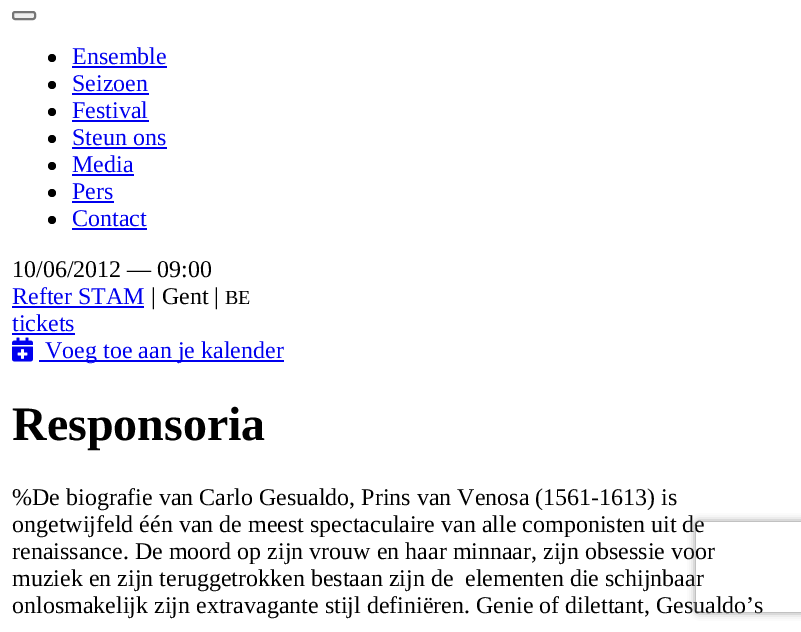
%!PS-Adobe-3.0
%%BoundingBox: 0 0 801 632
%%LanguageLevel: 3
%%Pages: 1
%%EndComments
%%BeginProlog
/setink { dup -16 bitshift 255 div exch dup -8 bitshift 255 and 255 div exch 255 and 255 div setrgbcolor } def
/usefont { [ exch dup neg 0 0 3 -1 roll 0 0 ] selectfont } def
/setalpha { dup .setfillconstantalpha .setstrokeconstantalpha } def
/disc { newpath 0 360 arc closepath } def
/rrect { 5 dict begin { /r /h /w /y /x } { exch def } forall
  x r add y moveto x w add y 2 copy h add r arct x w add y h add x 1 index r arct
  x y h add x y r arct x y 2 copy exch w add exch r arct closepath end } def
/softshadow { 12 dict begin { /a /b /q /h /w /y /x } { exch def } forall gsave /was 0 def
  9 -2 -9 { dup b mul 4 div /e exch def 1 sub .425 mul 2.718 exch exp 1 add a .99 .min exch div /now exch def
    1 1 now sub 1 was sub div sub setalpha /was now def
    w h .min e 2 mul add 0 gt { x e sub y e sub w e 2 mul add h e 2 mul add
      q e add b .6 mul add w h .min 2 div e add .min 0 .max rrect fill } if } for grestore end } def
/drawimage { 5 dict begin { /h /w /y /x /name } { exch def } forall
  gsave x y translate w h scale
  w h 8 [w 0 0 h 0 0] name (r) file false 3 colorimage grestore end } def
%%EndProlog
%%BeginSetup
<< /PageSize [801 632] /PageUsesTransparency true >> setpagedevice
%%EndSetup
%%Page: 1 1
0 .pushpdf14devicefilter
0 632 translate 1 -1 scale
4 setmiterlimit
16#FFFFFF setink
0 0 801 632 rectfill
16#EFEFEF setink
13 12 22 7 2 rrect gsave fill grestore
16#767676 setink
2 setlinewidth
stroke
16#000000 setink
52 58 4 disc fill
/LiberationSerif-Regular 24 usefont
16#0000EE setink
72 64 moveto (Ensemble) show
72 66 95 2 rectfill
16#000000 setink
52 85 4 disc fill
16#0000EE setink
72 91 moveto (Seizoen) show
72 93 77 2 rectfill
16#000000 setink
52 112 4 disc fill
16#0000EE setink
72 118 moveto (Festival) show
72 120 77 2 rectfill
16#000000 setink
52 139 4 disc fill
16#0000EE setink
72 145 moveto (Steun ons) show
72 147 95 2 rectfill
16#000000 setink
52 166 4 disc fill
16#0000EE setink
72 172 moveto (Media) show
72 174 62 2 rectfill
16#000000 setink
52 193 4 disc fill
16#0000EE setink
72 199 moveto (Pers) show
72 201 42 2 rectfill
16#000000 setink
52 220 4 disc fill
16#0000EE setink
72 226 moveto (Contact) show
72 228 75 2 rectfill
16#000000 setink
12 277 moveto (10/06/2012 — 09:00) show
16#0000EE setink
12 304 moveto (Refter STAM) show
12 306 132 2 rectfill
16#000000 setink
151 304 moveto (| Gent |) show
/LiberationSerif-Regular 20 usefont
225 304 moveto (BE) show
/LiberationSerif-Regular 24 usefont
16#0000EE setink
12 331 moveto (tickets) show
12 333 63 2 rectfill
(img1.raw) 12 337 21 25 drawimage
39 360 245 2 rectfill
45 358 moveto (Voeg toe aan je kalender) show
/LiberationSerif-Bold 48 usefont
16#000000 setink
12 440 moveto (Responsoria) show
/LiberationSerif-Regular 24 usefont
[
    [(%De biografie van Carlo Gesualdo, Prins van Venosa \(1561-1613\) is) 12 505]
    [(ongetwijfeld één van de meest spectaculaire van alle componisten uit de) 12 532]
    [(renaissance. De moord op zijn vrouw en haar minnaar, zijn obsessie voor) 12 559]
    [(muziek en zijn teruggetrokken bestaan zijn de  elementen die schijnbaar) 12 586]
    [(onlosmakelijk zijn extravagante stijl definiëren. Genie of dilettant, Gesualdo’s) 12 613]
] { aload pop moveto show } forall
gsave
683 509 moveto 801 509 lineto 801 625 lineto 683 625 lineto closepath 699 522 moveto 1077 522 lineto 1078.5 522 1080 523.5 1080 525 curveto 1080 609 lineto 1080 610.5 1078.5 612 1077 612 curveto 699 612 lineto 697.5 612 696 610.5 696 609 curveto 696 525 lineto 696 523.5 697.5 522 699 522 curveto closepath eoclip newpath
16#808080 setink
696 522 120 90 3 4 1 softshadow
grestore
.poppdf14devicefilter showpage
%%EOF
